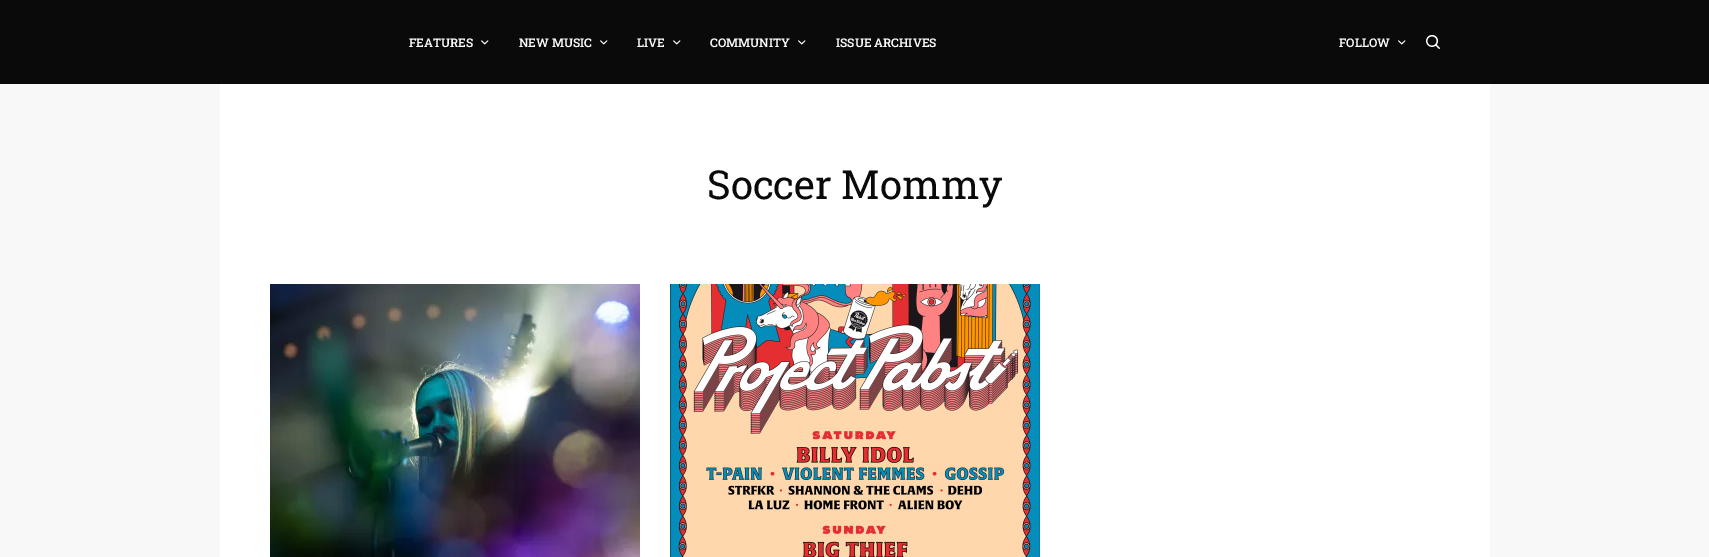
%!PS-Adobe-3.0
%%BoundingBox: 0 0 1709 557
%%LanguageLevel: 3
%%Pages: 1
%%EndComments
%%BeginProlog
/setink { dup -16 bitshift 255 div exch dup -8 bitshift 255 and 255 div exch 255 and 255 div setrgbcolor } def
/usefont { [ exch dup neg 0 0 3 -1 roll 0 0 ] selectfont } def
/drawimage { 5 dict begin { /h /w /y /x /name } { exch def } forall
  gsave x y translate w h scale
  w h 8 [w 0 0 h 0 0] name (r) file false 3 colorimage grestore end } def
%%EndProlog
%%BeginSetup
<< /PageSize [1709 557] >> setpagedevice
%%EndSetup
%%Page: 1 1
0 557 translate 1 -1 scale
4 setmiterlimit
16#F8F8F8 setink
0 0 1709 557 rectfill
16#0A0A0A setink
0 0 1709 84 rectfill
/RobotoSlab-SemiBold 12 usefont
16#FFFFFF setink
409 47 moveto (FEATURES) show
(img1.raw) 481 40 8 5 drawimage
519 47 moveto (NEW MUSIC) show
(img1.raw) 600 40 8 5 drawimage
637 47 moveto (LIVE) show
(img1.raw) 673 40 8 5 drawimage
710 47 moveto (COMMUNITY) show
(img1.raw) 798 40 8 5 drawimage
836 47 moveto (ISSUE ARCHIVES) show
1339 47 moveto (FOLLOW) show
(img1.raw) 1398 40 8 5 drawimage
(img2.raw) 1426 35 14 14 drawimage
220 84 1270 473 rectfill
/RobotoSlab-Regular 40 usefont
16#0A0A0A setink
707 199 moveto (Soccer Mommy) show
(img3.raw) 270 284 370 273 drawimage
(img4.raw) 670 284 370 273 drawimage
showpage
%%EOF
